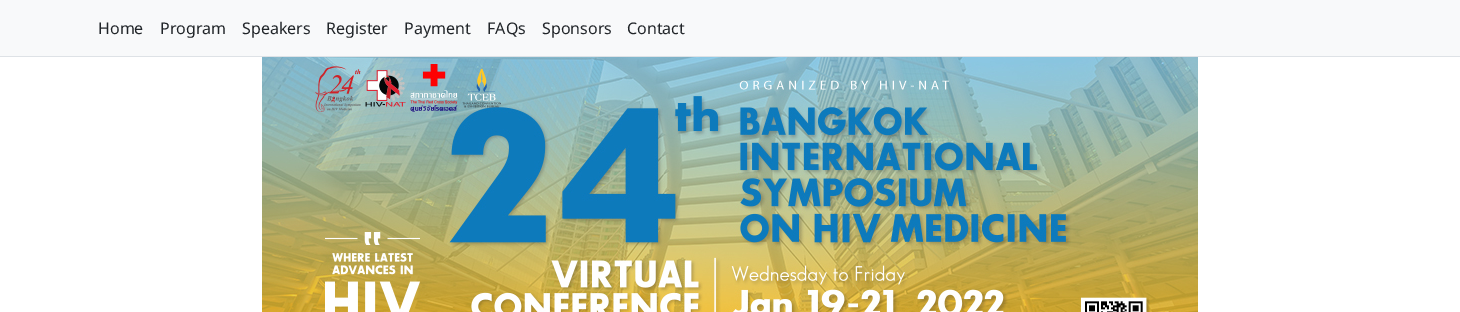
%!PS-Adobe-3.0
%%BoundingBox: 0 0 1460 312
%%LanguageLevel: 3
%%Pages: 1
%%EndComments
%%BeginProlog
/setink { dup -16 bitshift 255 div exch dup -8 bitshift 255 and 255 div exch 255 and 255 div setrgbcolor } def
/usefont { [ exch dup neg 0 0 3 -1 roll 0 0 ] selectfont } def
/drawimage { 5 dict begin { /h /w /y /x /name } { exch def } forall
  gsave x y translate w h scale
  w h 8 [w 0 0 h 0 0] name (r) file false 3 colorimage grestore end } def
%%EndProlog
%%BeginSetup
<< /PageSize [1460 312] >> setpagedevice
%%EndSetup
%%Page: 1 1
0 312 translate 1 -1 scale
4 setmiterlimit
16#FFFFFF setink
0 0 1460 312 rectfill
16#F8F9FA setink
0 0 1460 56 rectfill
16#DEE2E6 setink
0 56 1460 1 rectfill
/NotoSans-Regular 16 usefont
16#212529 setink
[
    [(Home) 98 34]
    [(Program) 160 34]
    [(Speakers) 242 34]
    [(Register) 326 34]
    [(Payment) 404 34]
    [(FAQs) 487 34]
    [(Sponsors) 542 34]
    [(Contact) 627 34]
] { aload pop moveto show } forall
(img1.raw) 262 57 936 255 drawimage
showpage
%%EOF
